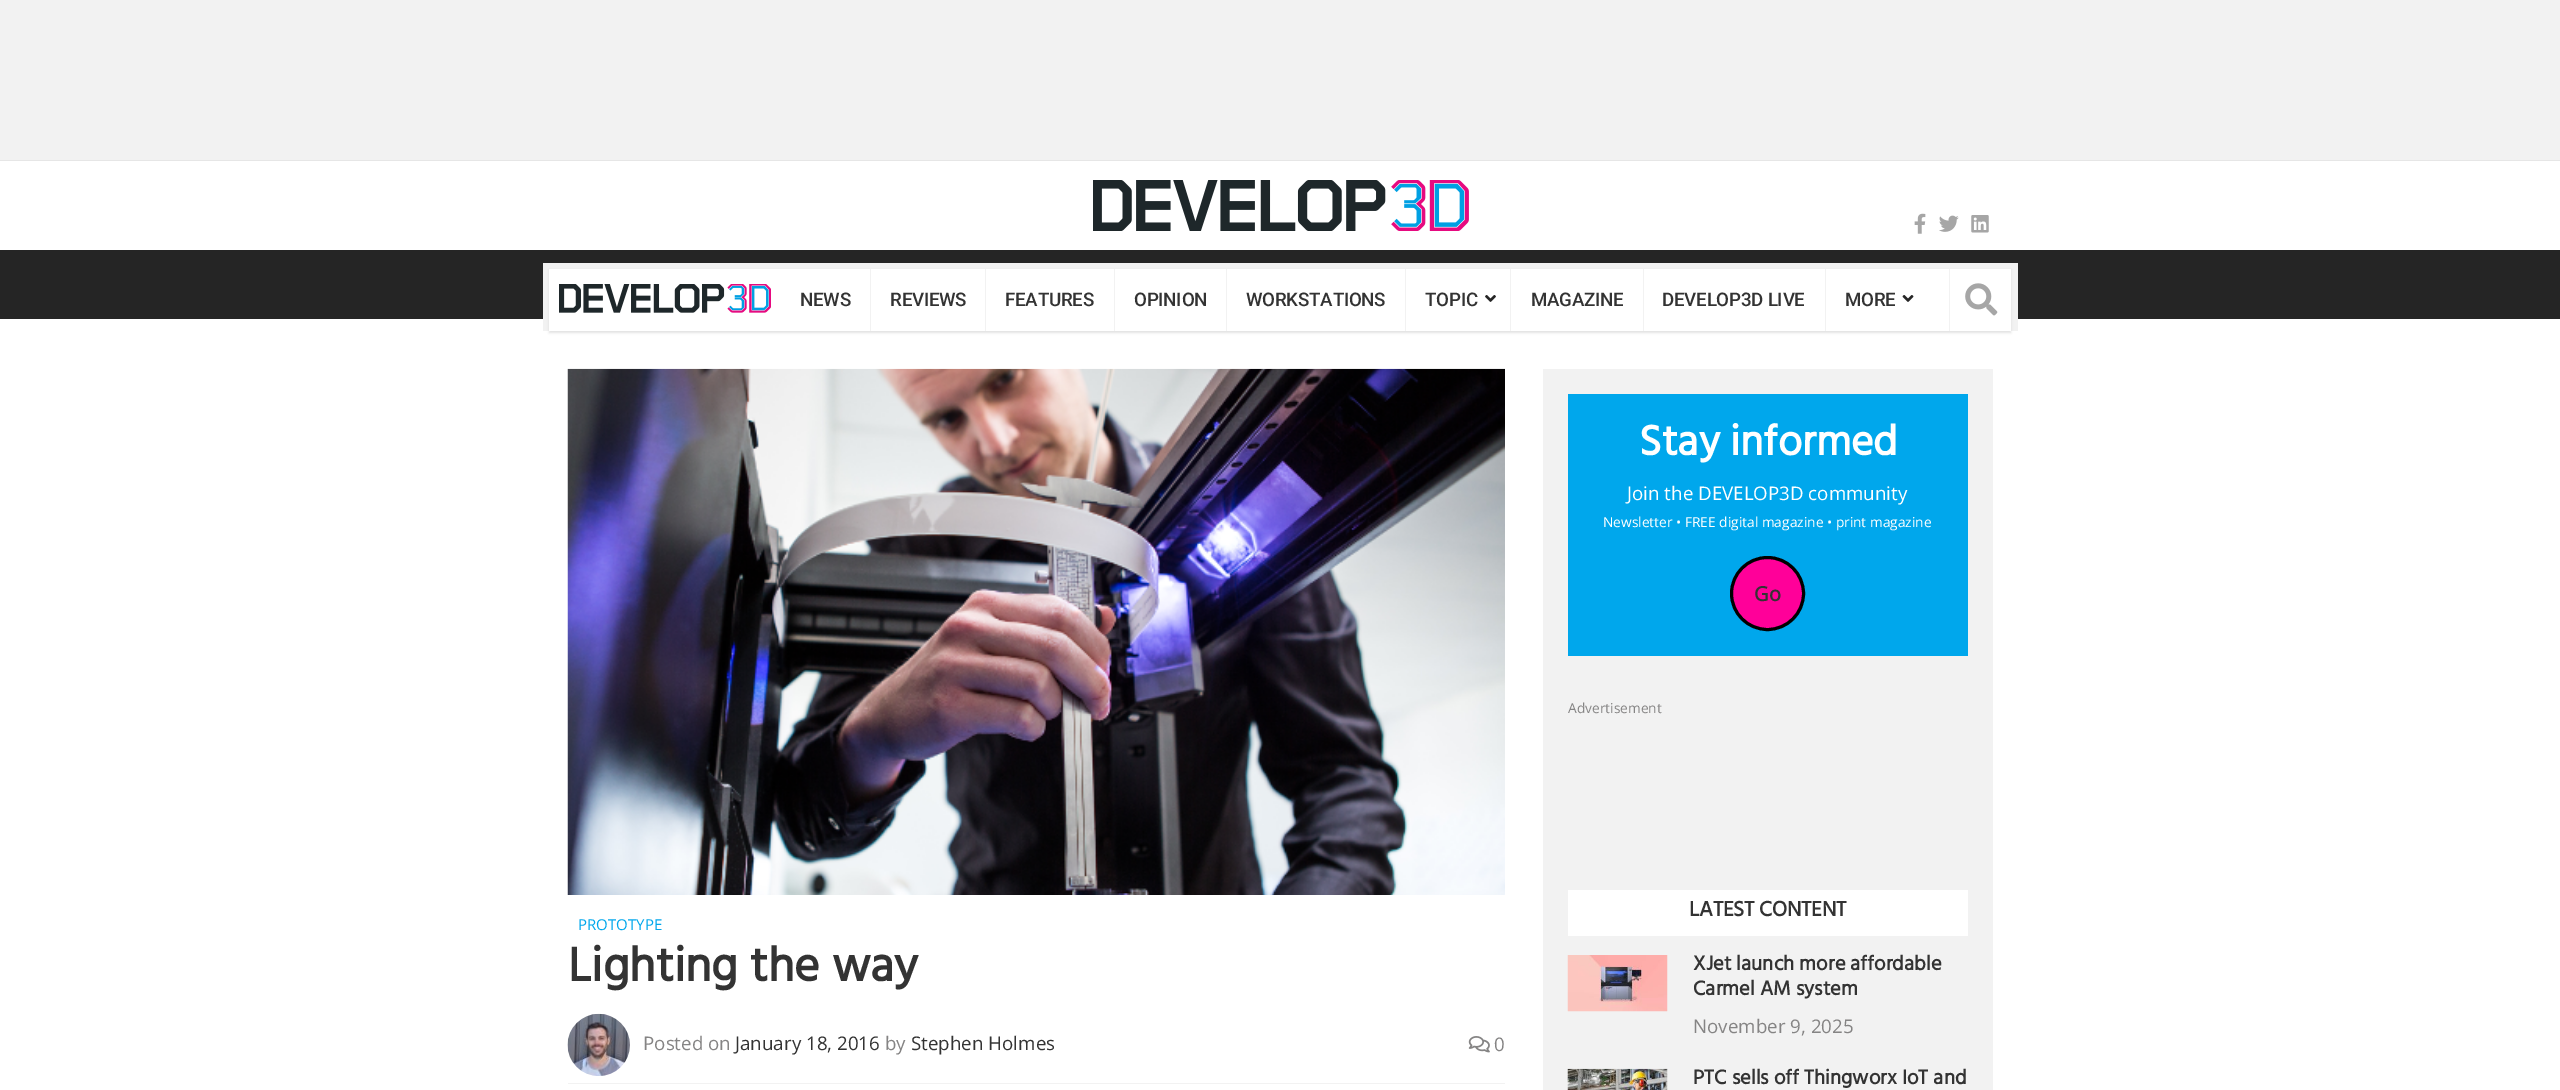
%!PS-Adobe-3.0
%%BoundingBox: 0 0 2560 1090
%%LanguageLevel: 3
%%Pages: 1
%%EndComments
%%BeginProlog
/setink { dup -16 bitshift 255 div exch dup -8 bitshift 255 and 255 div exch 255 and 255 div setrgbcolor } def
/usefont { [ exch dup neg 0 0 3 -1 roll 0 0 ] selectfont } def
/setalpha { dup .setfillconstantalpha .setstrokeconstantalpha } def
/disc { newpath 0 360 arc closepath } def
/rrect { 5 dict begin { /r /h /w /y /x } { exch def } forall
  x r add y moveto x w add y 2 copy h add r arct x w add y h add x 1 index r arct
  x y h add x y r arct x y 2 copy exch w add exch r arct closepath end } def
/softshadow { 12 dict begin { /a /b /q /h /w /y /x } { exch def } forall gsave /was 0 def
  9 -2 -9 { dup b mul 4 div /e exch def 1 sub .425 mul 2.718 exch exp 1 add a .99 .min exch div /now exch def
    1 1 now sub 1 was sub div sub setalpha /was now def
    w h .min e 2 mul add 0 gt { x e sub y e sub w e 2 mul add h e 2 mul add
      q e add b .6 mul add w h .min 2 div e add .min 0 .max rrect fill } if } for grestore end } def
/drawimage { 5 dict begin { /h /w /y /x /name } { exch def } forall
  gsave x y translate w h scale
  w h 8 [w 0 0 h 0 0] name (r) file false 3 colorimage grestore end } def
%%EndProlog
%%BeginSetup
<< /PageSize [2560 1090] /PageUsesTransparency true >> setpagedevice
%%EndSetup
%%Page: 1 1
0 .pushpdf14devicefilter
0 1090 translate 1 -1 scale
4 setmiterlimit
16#FFFFFF setink
0 0 2560 1090 rectfill
16#F2F2F2 setink
0 0 2560 160 rectfill
16#E6E6E6 setink
0 160 2560 1 rectfill
(img1.raw) 1914 213 12 21 drawimage
(img2.raw) 1939 215 20 17 drawimage
(img3.raw) 1971 215 18 18 drawimage
(img4.raw) 1093 180 376 51 drawimage
16#252525 setink
0 250 2560 69 rectfill
16#F2F2F2 setink
543 263 1475 68 rectfill
16#6C6C6C setink
549 270 1462 63 0 1 0.2 softshadow
16#FFFFFF setink
549 269 1462 62 rectfill
(img5.raw) 559 284 212 29 drawimage
/Roboto-Medium 18.75 usefont
16#333333 setink
800 306 moveto -0.25 0 (NEWS) ashow
16#F2F2F2 setink
870 269 1 62 rectfill
16#333333 setink
890 306 moveto -0.25 0 (REVIEWS) ashow
16#F2F2F2 setink
985 269 1 62 rectfill
16#333333 setink
1005 306 moveto -0.25 0 (FEATURES) ashow
16#F2F2F2 setink
1114 269 1 62 rectfill
16#333333 setink
1134 306 moveto -0.25 0 (OPINION) ashow
16#F2F2F2 setink
1226 269 1 62 rectfill
16#333333 setink
1246 306 moveto -0.25 0 (WORKSTATIONS) ashow
16#F2F2F2 setink
1405 269 1 62 rectfill
16#333333 setink
1425 306 moveto -0.25 0 (TOPIC) ashow
(img6.raw) 1485 295 11 7 drawimage
16#F2F2F2 setink
1510 269 1 62 rectfill
16#333333 setink
1531 306 moveto -0.25 0 (MAGAZINE) ashow
16#F2F2F2 setink
1643 269 1 62 rectfill
16#333333 setink
1662 306 moveto -0.25 0 (DEVELOP3D LIVE) ashow
16#F2F2F2 setink
1825 269 1 62 rectfill
16#333333 setink
1845 306 moveto -0.25 0 (MORE) ashow
(img7.raw) 1902 295 12 7 drawimage
16#F2F2F2 setink
1949 269 1 62 rectfill
(img8.raw) 1965 283 33 33 drawimage
(img9.raw) 567 368 938 527 drawimage
/OpenSans-Regular 15 usefont
16#00A7EC setink
578 930 moveto (PROTOTYPE) show
/HindGuntur-Bold 48.75 usefont
16#333333 setink
568 981 moveto (Lighting the way) show
16#F2F2F2 setink
568 1083 937 1 rectfill
(img10.raw) 567 1013 63 63 drawimage
/OpenSans-Regular 18.75 usefont
16#858484 setink
643 1050 moveto (Posted on) show
16#333333 setink
735 1050 moveto (January 18, 2016) show
16#858484 setink
885 1050 moveto (by) show
16#333333 setink
911 1050 moveto (Stephen Holmes) show
(img11.raw) 1468 1036 22 17 drawimage
16#858484 setink
1494 1051 moveto (0) show
16#F2F2F2 setink
1543 369 450 721 rectfill
16#00A7EC setink
1568 394 400 262 rectfill
/HindGuntur-Bold 43 usefont
16#FFFFFF setink
1639 455 moveto (Stay informed) show
/OpenSans-Regular 18.75 usefont
1627 500 moveto (Join the DEVELOP3D community) show
/OpenSans-Regular 13.75 usefont
1603 527 moveto (Newsletter • FREE digital magazine • print magazine) show
16#FF0099 setink
1767.5 593.5 36 disc gsave fill grestore
16#000000 setink
3 setlinewidth
stroke
/OpenSans-Bold 20 usefont
16#333333 setink
1754 601 moveto (Go) show
/OpenSans-Regular 13.75 usefont
16#858484 setink
1568 713 moveto (Advertisement) show
16#FFFFFF setink
1568 890 400 46 rectfill
/HindGuntur-Bold 21.5 usefont
16#333333 setink
1689 916 moveto -0.25 0 (LATEST CONTENT) ashow
(img12.raw) 1567 955 101 57 drawimage
/HindGuntur-Bold 20.6 usefont
1693 970 moveto (XJet launch more affordable) show
1693 995 moveto (Carmel AM system) show
/OpenSans-Regular 18.75 usefont
16#858484 setink
1693 1033 moveto (November 9, 2025) show
(img13.raw) 1567 1068 101 22 drawimage
/HindGuntur-Bold 20.6 usefont
16#333333 setink
1693 1084 moveto (PTC sells off Thingworx IoT and) show
.poppdf14devicefilter showpage
%%EOF
